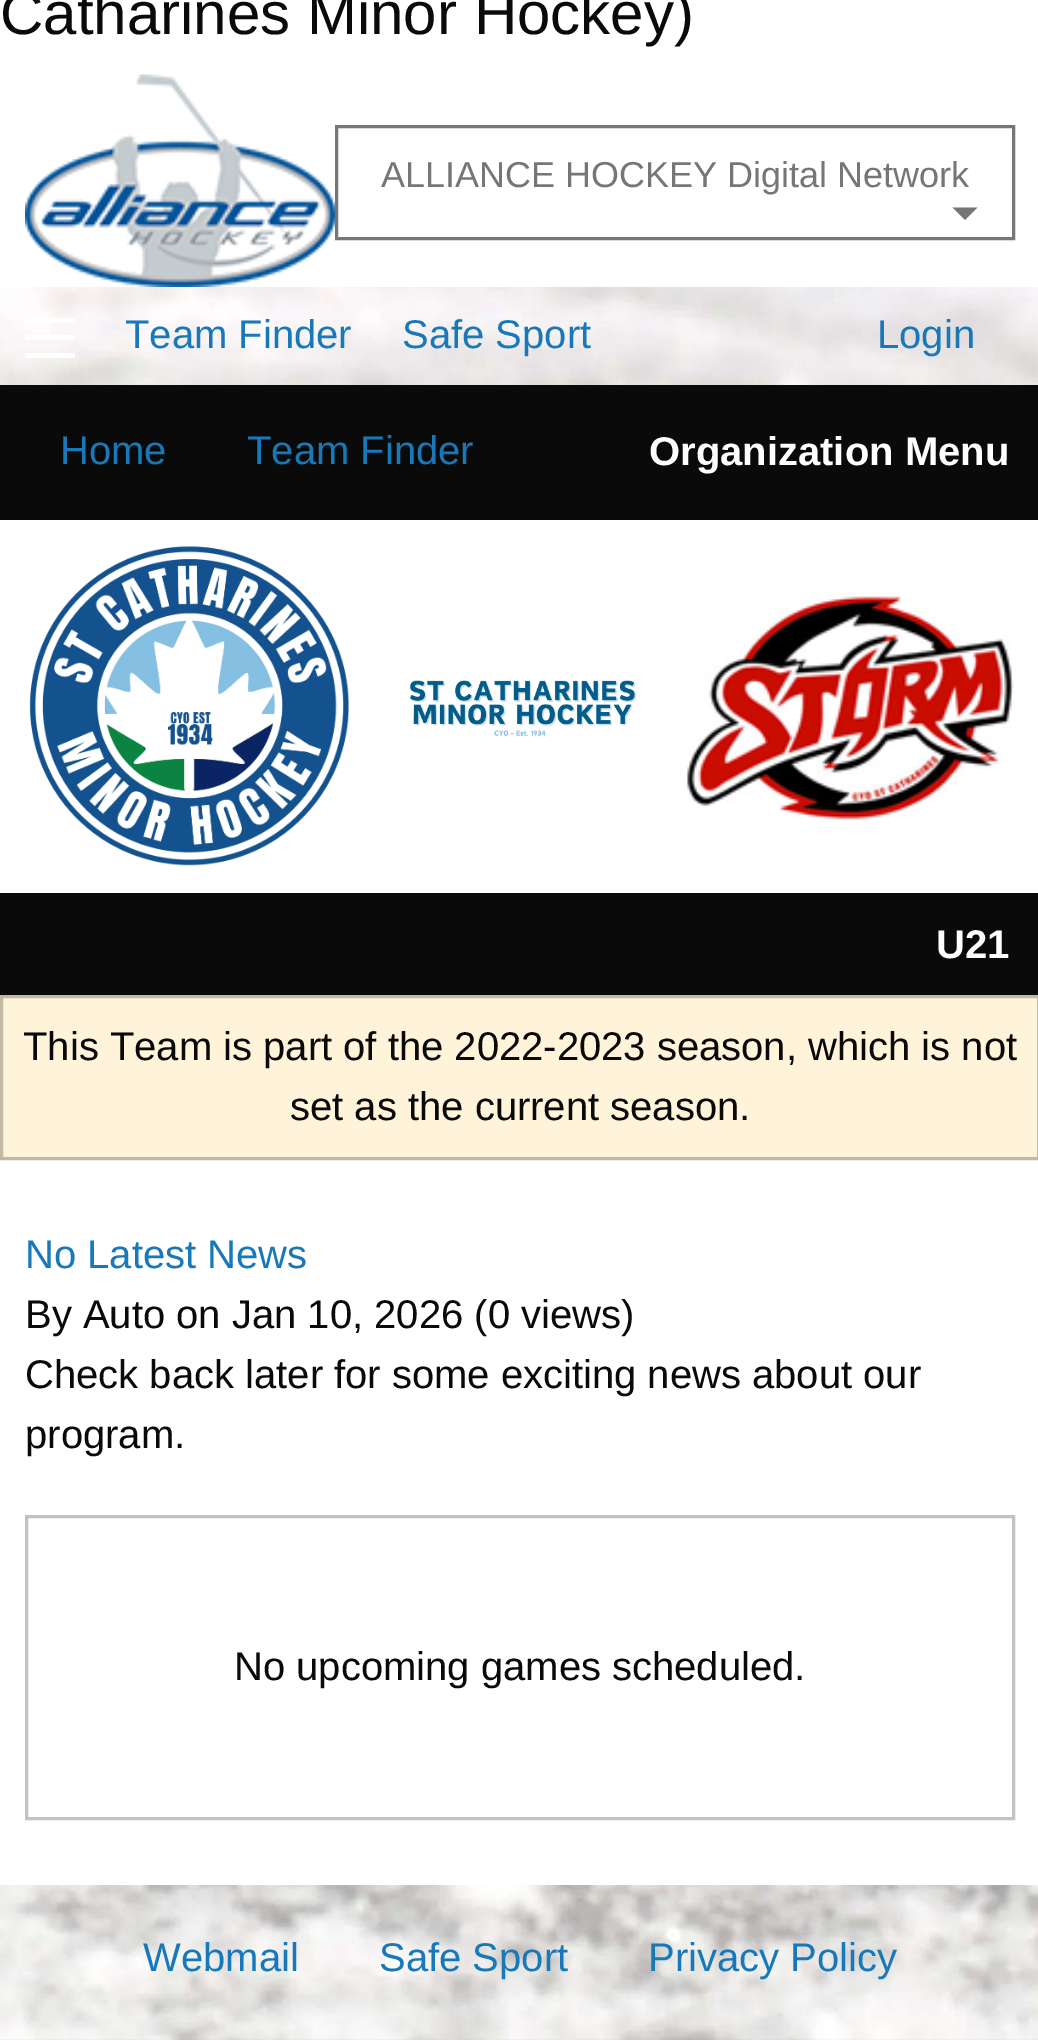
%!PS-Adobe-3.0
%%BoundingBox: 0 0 1038 2040
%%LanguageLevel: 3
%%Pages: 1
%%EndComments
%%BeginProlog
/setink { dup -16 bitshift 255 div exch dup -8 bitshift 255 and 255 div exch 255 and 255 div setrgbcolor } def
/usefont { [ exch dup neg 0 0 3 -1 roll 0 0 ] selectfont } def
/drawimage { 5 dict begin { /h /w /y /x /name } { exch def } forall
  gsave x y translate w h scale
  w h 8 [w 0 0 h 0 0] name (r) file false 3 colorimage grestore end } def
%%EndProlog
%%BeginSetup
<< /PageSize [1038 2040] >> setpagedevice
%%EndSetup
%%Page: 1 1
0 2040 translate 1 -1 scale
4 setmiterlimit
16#FFFFFF setink
0 0 1038 2040 rectfill
/LiberationSans-Regular 60 usefont
16#0A0A0A setink
0 34 moveto (Catharines Minor Hockey\)) show
(img1.raw) 25 74 310 213 drawimage
16#767676 setink
3 setlinewidth
336.5 126.5 677 112 rectstroke
/LiberationSans-Regular 36 usefont
381 187 moveto (ALLIANCE HOCKEY Digital Network) show
952.5 207.5 moveto 977.5 207.5 lineto 965 220 lineto closepath fill
(img2.raw) 0 287 1038 1753 drawimage
[
    [25 353 50 5 16#FEFEFE]
    [25 335 50 5 16#FEFEFE]
    [25 318 50 5 16#FEFEFE]
] { aload pop setink rectfill } forall
/LiberationSans-Regular 40 usefont
16#1779BA setink
[
    [(Team Finder) 125 348]
    [(Safe Sport) 402 348]
    [(Login) 877 348]
] { aload pop moveto show } forall
16#0A0A0A setink
0 385 1038 135 rectfill
16#1779BA setink
60 464 moveto (Home) show
247 464 moveto (Team Finder) show
/LiberationSans-Bold 40 usefont
16#FEFEFE setink
649 465 moveto (Organization Menu) show
16#FFFFFF setink
0 520 1038 373 rectfill
(img3.raw) 29 546 320 320 drawimage
(img4.raw) 410 680 226 56 drawimage
(img5.raw) 687 593 327 227 drawimage
16#0A0A0A setink
0 893 1038 102 rectfill
16#FEFEFE setink
936 958 moveto (U21) show
16#FFFFFF setink
0 1160 1038 725 rectfill
16#FFF3D9 setink
1.5 996.5 moveto 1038.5 996.5 lineto 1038.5 1158.5 lineto 1.5 1158.5 lineto closepath gsave fill grestore
16#C2B9A5 setink
stroke
/LiberationSans-Regular 40 usefont
16#0A0A0A setink
23 1060 moveto (This Team is part of the 2022-2023 season, which is not) show
290 1120 moveto (set as the current season.) show
16#1779BA setink
25 1268 moveto (No Latest News) show
16#0A0A0A setink
[
    [(By Auto on Jan 10, 2026 \(0 views\)) 25 1328]
    [(Check back later for some exciting news about our) 25 1388]
    [(program.) 25 1448]
] { aload pop moveto show } forall
16#C2C2C2 setink
26.5 1516.5 987 302 rectstroke
16#0A0A0A setink
234 1680 moveto (No upcoming games scheduled.) show
16#1779BA setink
[
    [(Webmail) 143 1971]
    [(Safe Sport) 379 1971]
    [(Privacy Policy) 648 1971]
] { aload pop moveto show } forall
showpage
%%EOF
